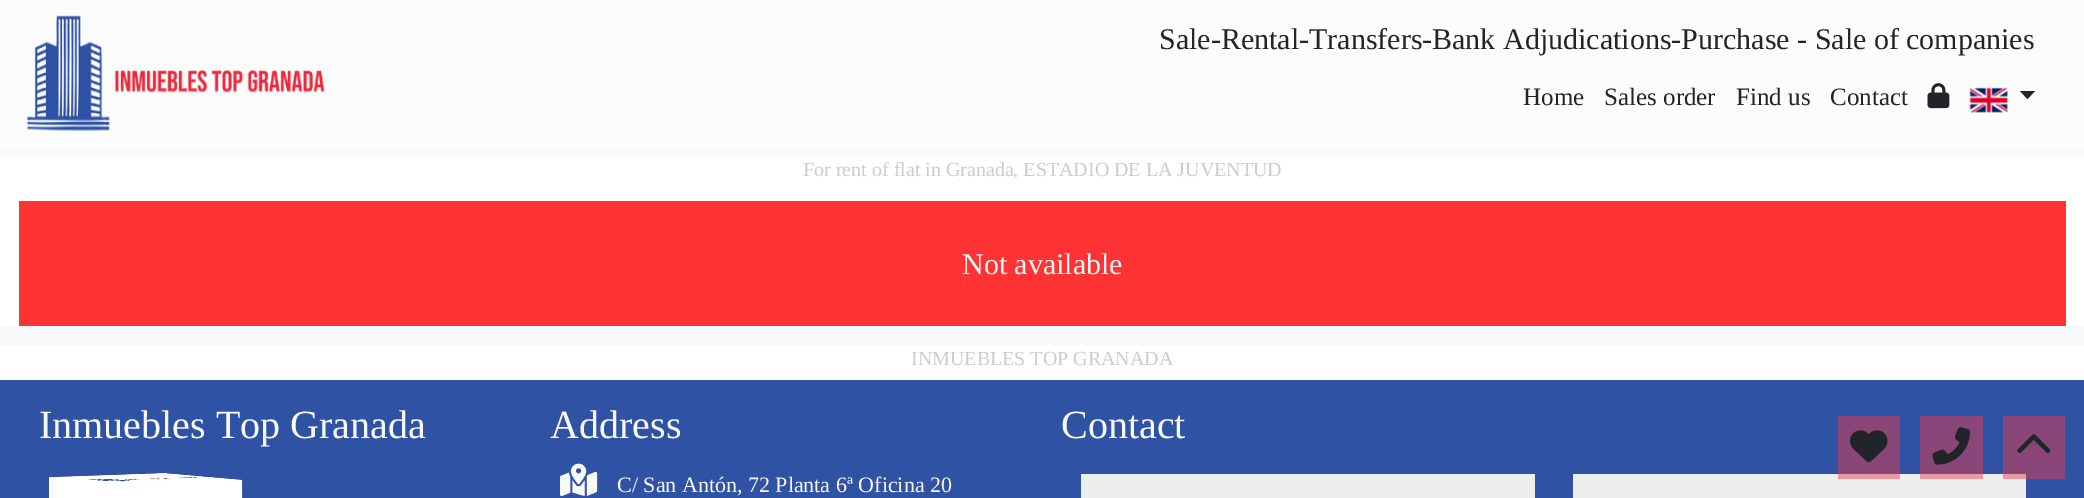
%!PS-Adobe-3.0
%%BoundingBox: 0 0 2084 498
%%LanguageLevel: 3
%%Pages: 1
%%EndComments
%%BeginProlog
/setink { dup -16 bitshift 255 div exch dup -8 bitshift 255 and 255 div exch 255 and 255 div setrgbcolor } def
/usefont { [ exch dup neg 0 0 3 -1 roll 0 0 ] selectfont } def
/drawimage { 5 dict begin { /h /w /y /x /name } { exch def } forall
  gsave x y translate w h scale
  w h 8 [w 0 0 h 0 0] name (r) file false 3 colorimage grestore end } def
%%EndProlog
%%BeginSetup
<< /PageSize [2084 498] >> setpagedevice
%%EndSetup
%%Page: 1 1
0 498 translate 1 -1 scale
4 setmiterlimit
16#FFFFFF setink
0 0 2084 498 rectfill
16#FBFCFC setink
0 0 2084 148 rectfill
(img1.raw) 27 15 298 116 drawimage
/LiberationSerif-Regular 30 usefont
16#212529 setink
1159 49 moveto (Sale-Rental-Transfers-Bank Adjudications-Purchase - Sale of companies) show
/LiberationSerif-Regular 25 usefont
[
    [(Home) 1523 105]
    [(Sales order) 1604 105]
    [(Find us) 1736 105]
    [(Contact) 1830 105]
] { aload pop moveto show } forall
(img2.raw) 1927 83 23 26 drawimage
(img3.raw) 1969 87 39 26 drawimage
2020 91 moveto 2035 91 lineto 2027.5 99 lineto closepath fill
16#F8F9FA setink
0 148 2084 198 rectfill
16#FFFFFF setink
0 158 2084 168 rectfill
/LiberationSerif-Regular 20 usefont
16#CCCCCC setink
803 176 moveto (For rent of flat in Granada, ESTADIO DE LA JUVENTUD) show
16#FF3333 setink
19 201 2047 125 rectfill
/LiberationSerif-Regular 30 usefont
16#F8F9FA setink
962 274 moveto (Not available) show
/LiberationSerif-Regular 20 usefont
16#CCCCCC setink
911 365 moveto (INMUEBLES TOP GRANADA) show
[
    [0 380 2084 118 16#3052A4]
    [1838 416 62 58 16#8A4679]
    [1920 416 63 58 16#8A4679]
    [2003 416 62 63 16#8A4679]
] { aload pop setink rectfill } forall
/LiberationSerif-Regular 40 usefont
16#F8F9FA setink
39 438 moveto (Inmuebles Top Granada) show
(img4.raw) 49 473 116 25 drawimage
(img6.raw) 49 477 6 1 drawimage
(img8.raw) 163 480 80 18 drawimage
(img7.raw) 164 473 78 10 drawimage
(img5.raw) 52 473 184 10 drawimage
550 438 moveto (Address) show
(img9.raw) 560 463 38 34 drawimage
/LiberationSerif-Regular 22 usefont
617 492 moveto (C/ San Antón, 72 Planta 6ª Oficina 20) show
/LiberationSerif-Regular 40 usefont
1061 438 moveto (Contact) show
[
    [1081 474 454 24 16#EEEEEE]
    [1573 474 453 24 16#EEEEEE]
    [1838 474 62 5 16#EE99A0]
    [1920 474 63 5 16#EE99A0]
    [2003 474 23 5 16#EE99A0]
] { aload pop setink rectfill } forall
(img10.raw) 1850 430 38 33 drawimage
(img11.raw) 1932 427 38 38 drawimage
(img12.raw) 2017 434 34 19 drawimage
showpage
%%EOF
